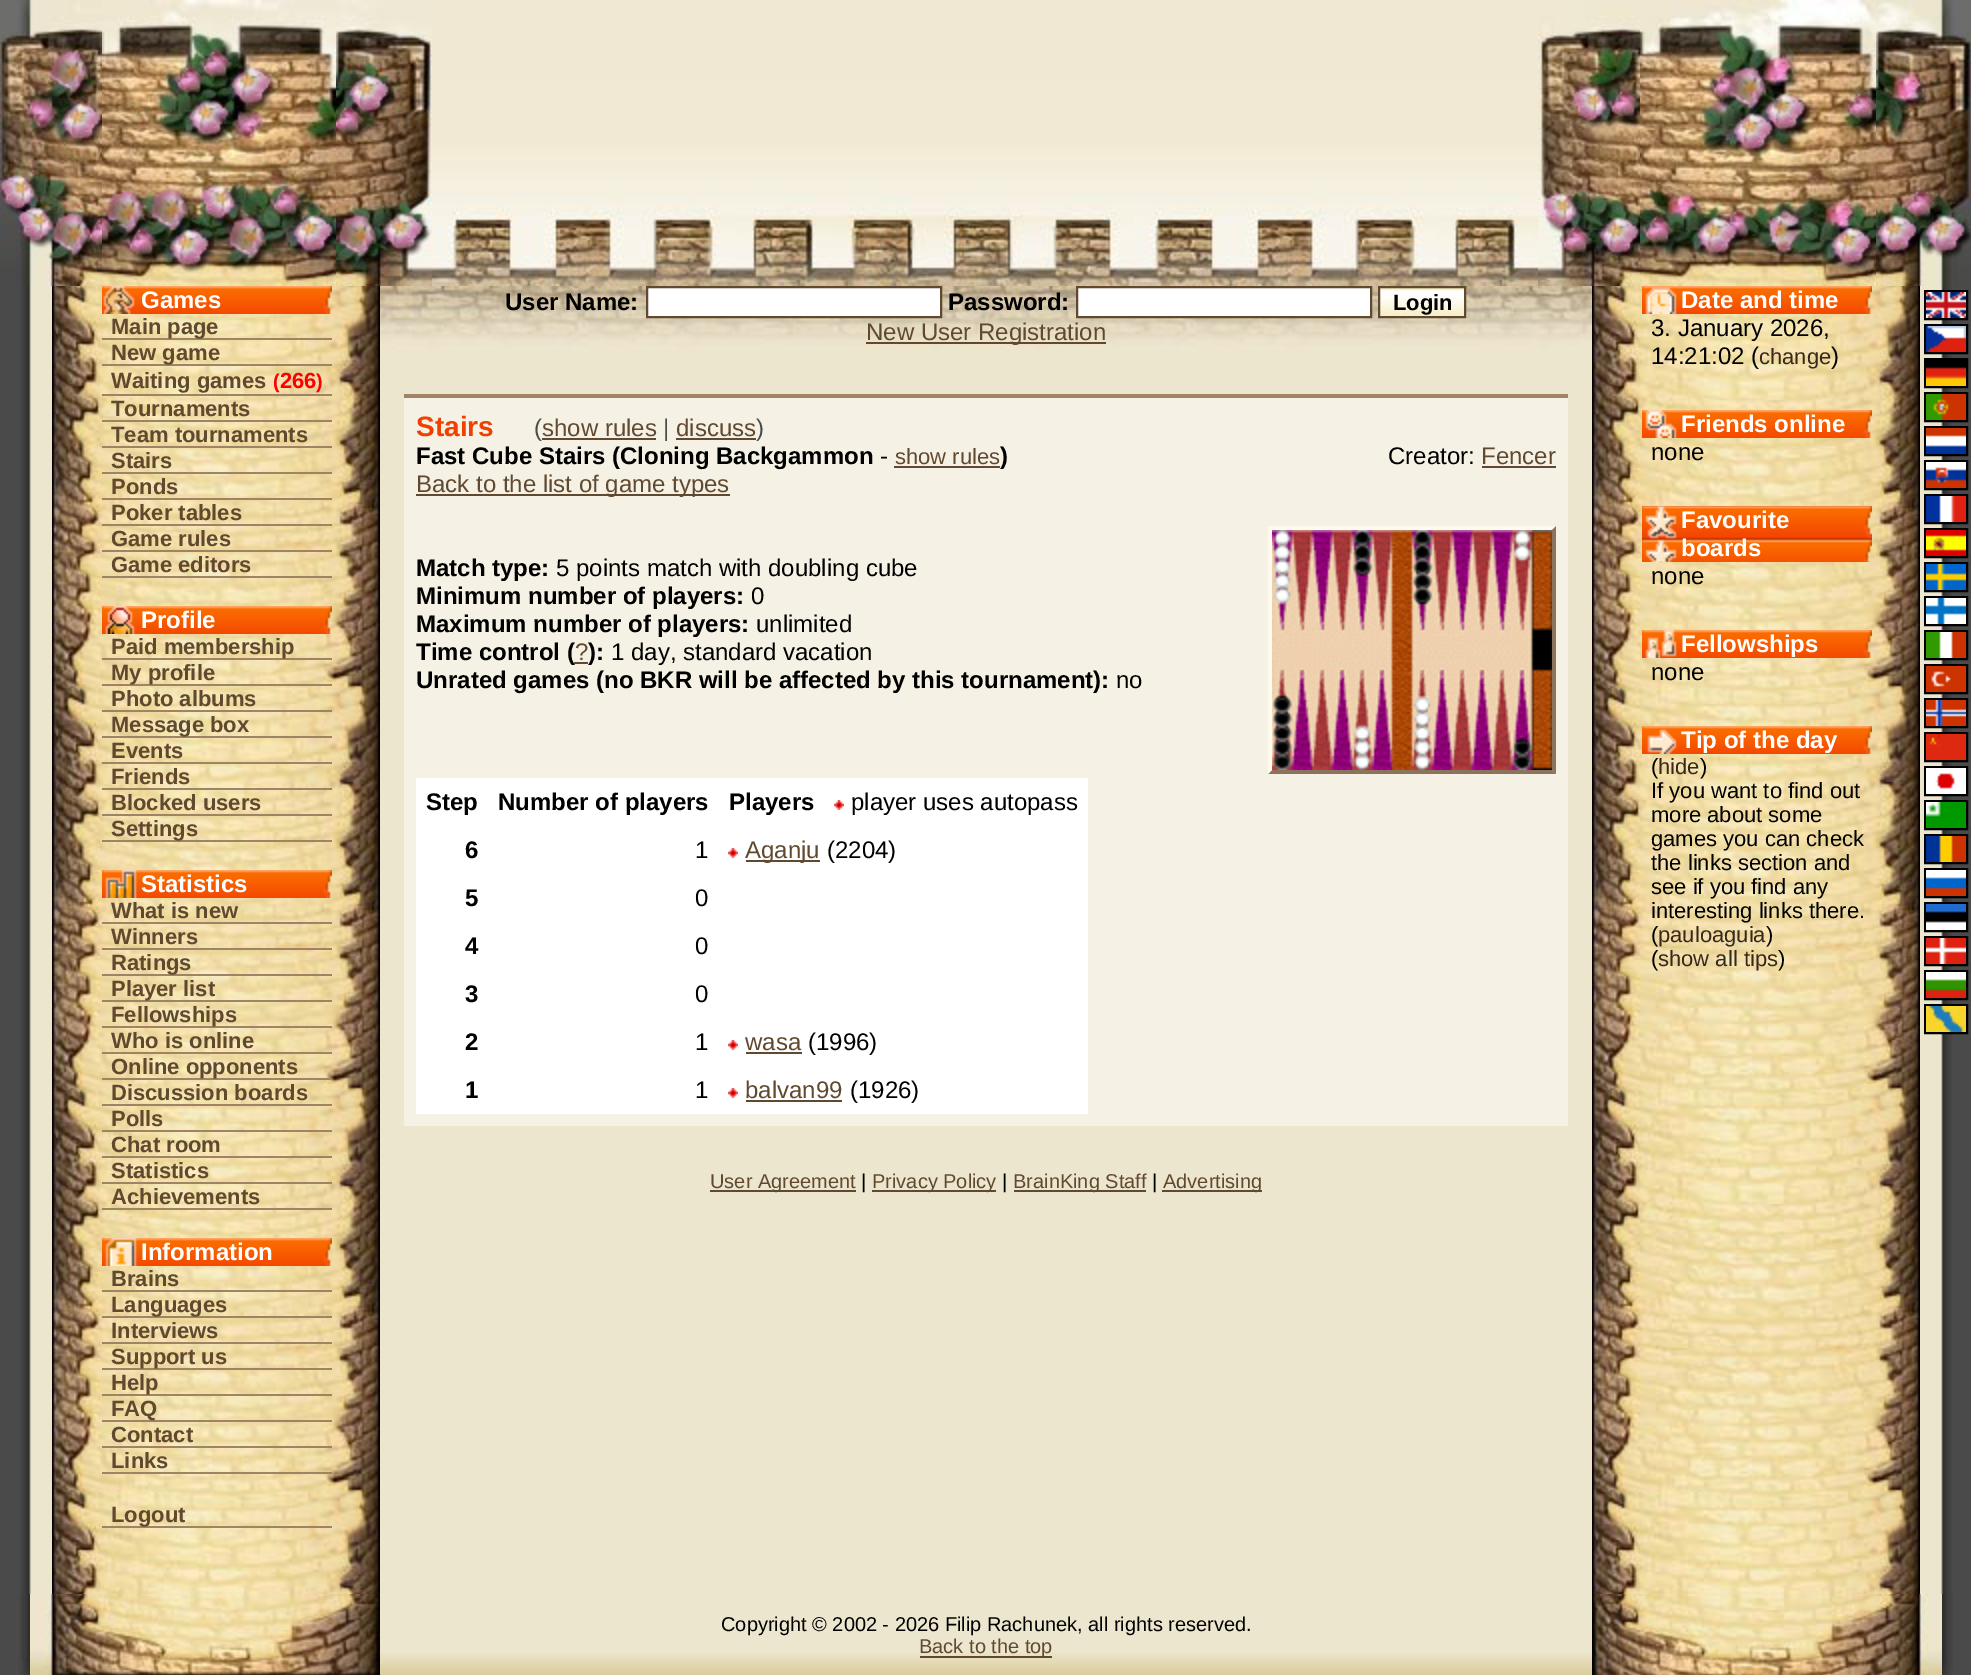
%!PS-Adobe-3.0
%%BoundingBox: 0 0 1971 1675
%%LanguageLevel: 3
%%Pages: 1
%%EndComments
%%BeginProlog
/setink { dup -16 bitshift 255 div exch dup -8 bitshift 255 and 255 div exch 255 and 255 div setrgbcolor } def
/usefont { [ exch dup neg 0 0 3 -1 roll 0 0 ] selectfont } def
/drawimage { 5 dict begin { /h /w /y /x /name } { exch def } forall
  gsave x y translate w h scale
  w h 8 [w 0 0 h 0 0] name (r) file false 3 colorimage grestore end } def
%%EndProlog
%%BeginSetup
<< /PageSize [1971 1675] >> setpagedevice
%%EndSetup
%%Page: 1 1
0 1675 translate 1 -1 scale
4 setmiterlimit
16#4A4A4A setink
0 0 1971 1675 rectfill
(img1.raw) 0 0 102 286 drawimage
(img2.raw) 102 0 234 286 drawimage
(img3.raw) 336 0 96 286 drawimage
(img4.raw) 432 0 1106 286 drawimage
(img5.raw) 1538 0 102 286 drawimage
(img6.raw) 1640 0 236 286 drawimage
(img7.raw) 1876 0 95 286 drawimage
(img8.raw) 20 286 32 1308 drawimage
(img9.raw) 52 286 328 1308 drawimage
(img10.raw) 102 286 230 28 drawimage
/LiberationSans-Bold 24 usefont
16#FFFFFF setink
141 308 moveto (Games) show
16#A08364 setink
102 338 230 2 rectfill
/LiberationSans-Bold 22 usefont
16#614930 setink
111 334 moveto (Main page) show
16#A08364 setink
102 364 230 2 rectfill
16#614930 setink
111 360 moveto (New game) show
16#A08364 setink
102 394 230 2 rectfill
16#614930 setink
111 388 moveto (Waiting games) show
/LiberationSans-Bold 20 usefont
16#FF0000 setink
273 388 moveto (\() show
/LiberationSans-Bold 22 usefont
280 388 moveto (266) show
/LiberationSans-Bold 20 usefont
316 388 moveto (\)) show
16#A08364 setink
102 420 230 2 rectfill
/LiberationSans-Bold 22 usefont
16#614930 setink
111 416 moveto (Tournaments) show
16#A08364 setink
102 446 230 2 rectfill
16#614930 setink
111 442 moveto (Team tournaments) show
16#A08364 setink
102 472 230 2 rectfill
16#614930 setink
111 468 moveto (Stairs) show
16#A08364 setink
102 498 230 2 rectfill
16#614930 setink
111 494 moveto (Ponds) show
16#A08364 setink
102 524 230 2 rectfill
16#614930 setink
111 520 moveto (Poker tables) show
16#A08364 setink
102 550 230 2 rectfill
16#614930 setink
111 546 moveto (Game rules) show
16#A08364 setink
102 576 230 2 rectfill
16#614930 setink
111 572 moveto (Game editors) show
(img11.raw) 102 606 230 28 drawimage
/LiberationSans-Bold 24 usefont
16#FFFFFF setink
141 628 moveto (Profile) show
16#A08364 setink
102 658 230 2 rectfill
/LiberationSans-Bold 22 usefont
16#614930 setink
111 654 moveto (Paid membership) show
16#A08364 setink
102 684 230 2 rectfill
16#614930 setink
111 680 moveto (My profile) show
16#A08364 setink
102 710 230 2 rectfill
16#614930 setink
111 706 moveto (Photo albums) show
16#A08364 setink
102 736 230 2 rectfill
16#614930 setink
111 732 moveto (Message box) show
16#A08364 setink
102 762 230 2 rectfill
16#614930 setink
111 758 moveto (Events) show
16#A08364 setink
102 788 230 2 rectfill
16#614930 setink
111 784 moveto (Friends) show
16#A08364 setink
102 814 230 2 rectfill
16#614930 setink
111 810 moveto (Blocked users) show
16#A08364 setink
102 840 230 2 rectfill
16#614930 setink
111 836 moveto (Settings) show
(img12.raw) 102 870 230 28 drawimage
/LiberationSans-Bold 24 usefont
16#FFFFFF setink
141 892 moveto (Statistics) show
16#A08364 setink
102 922 230 2 rectfill
/LiberationSans-Bold 22 usefont
16#614930 setink
111 918 moveto (What is new) show
16#A08364 setink
102 948 230 2 rectfill
16#614930 setink
111 944 moveto (Winners) show
16#A08364 setink
102 974 230 2 rectfill
16#614930 setink
111 970 moveto (Ratings) show
16#A08364 setink
102 1000 230 2 rectfill
16#614930 setink
111 996 moveto (Player list) show
16#A08364 setink
102 1026 230 2 rectfill
16#614930 setink
111 1022 moveto (Fellowships) show
16#A08364 setink
102 1052 230 2 rectfill
16#614930 setink
111 1048 moveto (Who is online) show
16#A08364 setink
102 1078 230 2 rectfill
16#614930 setink
111 1074 moveto (Online opponents) show
16#A08364 setink
102 1104 230 2 rectfill
16#614930 setink
111 1100 moveto (Discussion boards) show
16#A08364 setink
102 1130 230 2 rectfill
16#614930 setink
111 1126 moveto (Polls) show
16#A08364 setink
102 1156 230 2 rectfill
16#614930 setink
111 1152 moveto (Chat room) show
16#A08364 setink
102 1182 230 2 rectfill
16#614930 setink
111 1178 moveto (Statistics) show
16#A08364 setink
102 1208 230 2 rectfill
16#614930 setink
111 1204 moveto (Achievements) show
(img13.raw) 102 1238 230 28 drawimage
/LiberationSans-Bold 24 usefont
16#FFFFFF setink
141 1260 moveto (Information) show
16#A08364 setink
102 1290 230 2 rectfill
/LiberationSans-Bold 22 usefont
16#614930 setink
111 1286 moveto (Brains) show
16#A08364 setink
102 1316 230 2 rectfill
16#614930 setink
111 1312 moveto (Languages) show
16#A08364 setink
102 1342 230 2 rectfill
16#614930 setink
111 1338 moveto (Interviews) show
16#A08364 setink
102 1368 230 2 rectfill
16#614930 setink
111 1364 moveto (Support us) show
16#A08364 setink
102 1394 230 2 rectfill
16#614930 setink
111 1390 moveto (Help) show
16#A08364 setink
102 1420 230 2 rectfill
16#614930 setink
111 1416 moveto (FAQ) show
16#A08364 setink
102 1446 230 2 rectfill
16#614930 setink
111 1442 moveto (Contact) show
16#A08364 setink
102 1472 230 2 rectfill
16#614930 setink
111 1468 moveto (Links) show
16#A08364 setink
102 1526 230 2 rectfill
16#614930 setink
111 1522 moveto (Logout) show
16#EDE6CE setink
380 349 1212 1304 rectfill
(img14.raw) 380 286 1212 63 drawimage
/LiberationSans-Bold 24 usefont
16#000000 setink
505 310 moveto (User Name:) show
16#FFFFFF setink
647 287 moveto 941 287 lineto 941 317 lineto 647 317 lineto closepath gsave fill grestore
16#614930 setink
2 setlinewidth
stroke
16#000000 setink
948 310 moveto (Password:) show
16#FFFFFF setink
1077 287 moveto 1371 287 lineto 1371 317 lineto 1077 317 lineto closepath gsave fill grestore
16#614930 setink
stroke
16#F6ECC2 setink
1380 288 84 1 rectfill
(img15.raw) 1380 289 84 27 drawimage
16#614930 setink
1379 287 86 30 rectstroke
/LiberationSans-Bold 22 usefont
16#000000 setink
1393 310 moveto (Login) show
16#614930 setink
866 342 240 2 rectfill
/LiberationSans-Regular 24 usefont
866 340 moveto (New User Registration) show
16#F5F1E4 setink
404 398 1164 728 rectfill
16#A08364 setink
404 394 1164 4 rectfill
/LiberationSans-Bold 28 usefont
16#EF4000 setink
416 436 moveto (Stairs) show
/LiberationSans-Regular 24 usefont
16#4A4A4A setink
534 436 moveto (\() show
16#614930 setink
542 438 114 2 rectfill
542 436 moveto (show rules) show
16#4A4A4A setink
663 436 moveto (|) show
16#614930 setink
676 436 moveto (discuss) show
16#4A4A4A setink
756 436 moveto (\)) show
16#614930 setink
676 438 80 2 rectfill
/LiberationSans-Bold 24 usefont
16#000000 setink
416 464 moveto (Fast Cube Stairs \(Cloning Backgammon) show
/LiberationSans-Regular 24 usefont
880 464 moveto (-) show
/LiberationSans-Regular 22 usefont
16#614930 setink
895 464 moveto (show rules) show
894 466 106 2 rectfill
/LiberationSans-Bold 24 usefont
16#000000 setink
1000 464 moveto (\)) show
/LiberationSans-Regular 24 usefont
1388 464 moveto (Creator:) show
16#614930 setink
1481 464 moveto (Fencer) show
1482 466 74 2 rectfill
416 494 314 2 rectfill
416 492 moveto (Back to the list of game types) show
/LiberationSans-Bold 24 usefont
16#000000 setink
416 576 moveto (Match type:) show
/LiberationSans-Regular 24 usefont
556 576 moveto (5 points match with doubling cube) show
16#FFFAEE setink
1268 526 moveto 1556 526 lineto 1552 530 lineto 1272 530 lineto closepath fill
16#8B735C setink
1556 526 moveto 1556 774 lineto 1552 770 lineto 1552 530 lineto closepath fill
1556 774 moveto 1268 774 lineto 1272 770 lineto 1552 770 lineto closepath fill
16#FFFAEE setink
1268 774 moveto 1268 526 lineto 1272 530 lineto 1272 770 lineto closepath fill
(img16.raw) 1272 530 280 240 drawimage
/LiberationSans-Bold 24 usefont
16#000000 setink
416 604 moveto (Minimum number of players:) show
/LiberationSans-Regular 24 usefont
751 604 moveto (0) show
/LiberationSans-Bold 24 usefont
416 632 moveto (Maximum number of players:) show
/LiberationSans-Regular 24 usefont
756 632 moveto (unlimited) show
/LiberationSans-Bold 24 usefont
416 660 moveto (Time control \() show
16#614930 setink
574 662 14 2 rectfill
/LiberationSans-Regular 24 usefont
575 660 moveto (?) show
/LiberationSans-Bold 24 usefont
16#000000 setink
588 660 moveto (\):) show
/LiberationSans-Regular 24 usefont
611 660 moveto (1 day, standard vacation) show
/LiberationSans-Bold 24 usefont
416 688 moveto (Unrated games \(no BKR will be affected by this tournament\):) show
/LiberationSans-Regular 24 usefont
1116 688 moveto (no) show
16#FFFFFF setink
416 778 672 336 rectfill
/LiberationSans-Bold 24 usefont
16#000000 setink
[
    [(Step) 426 810]
    [(Number of players) 498 810]
    [(Players) 729 810]
] { aload pop moveto show } forall
(img17.raw) 834 800 10 10 drawimage
/LiberationSans-Regular 24 usefont
851 810 moveto (player uses autopass) show
/LiberationSans-Bold 24 usefont
465 858 moveto (6) show
/LiberationSans-Regular 24 usefont
695 858 moveto (1) show
(img17.raw) 728 848 10 10 drawimage
16#614930 setink
746 860 74 2 rectfill
745 858 moveto (Aganju) show
16#000000 setink
827 858 moveto (\(2204\)) show
/LiberationSans-Bold 24 usefont
465 906 moveto (5) show
/LiberationSans-Regular 24 usefont
695 906 moveto (0) show
/LiberationSans-Bold 24 usefont
465 954 moveto (4) show
/LiberationSans-Regular 24 usefont
695 954 moveto (0) show
/LiberationSans-Bold 24 usefont
465 1002 moveto (3) show
/LiberationSans-Regular 24 usefont
695 1002 moveto (0) show
/LiberationSans-Bold 24 usefont
465 1050 moveto (2) show
/LiberationSans-Regular 24 usefont
695 1050 moveto (1) show
(img17.raw) 728 1040 10 10 drawimage
16#614930 setink
745 1050 moveto (wasa) show
746 1052 56 2 rectfill
16#000000 setink
808 1050 moveto (\(1996\)) show
/LiberationSans-Bold 24 usefont
465 1098 moveto (1) show
/LiberationSans-Regular 24 usefont
695 1098 moveto (1) show
(img17.raw) 728 1088 10 10 drawimage
16#614930 setink
745 1098 moveto (balvan99) show
746 1100 96 2 rectfill
16#000000 setink
850 1098 moveto (\(1926\)) show
16#614930 setink
710 1190 146 2 rectfill
/LiberationSans-Regular 20 usefont
710 1188 moveto (User Agreement) show
16#000000 setink
861 1188 moveto (|) show
16#614930 setink
872 1190 124 2 rectfill
872 1188 moveto (Privacy Policy) show
16#000000 setink
1002 1188 moveto (|) show
16#614930 setink
1014 1190 132 2 rectfill
1013 1188 moveto (BrainKing Staff) show
16#000000 setink
1152 1188 moveto (|) show
16#614930 setink
1162 1190 100 2 rectfill
1163 1188 moveto (Advertising) show
(img9.raw) 1592 286 328 1308 drawimage
(img18.raw) 1642 286 230 28 drawimage
/LiberationSans-Bold 24 usefont
16#FFFFFF setink
1681 308 moveto (Date and time) show
/LiberationSans-Regular 24 usefont
16#000000 setink
1651 336 moveto (3. January 2026,) show
1651 364 moveto (14:21:02 \() show
/LiberationSans-Regular 22 usefont
16#36281B setink
1759 364 moveto (change) show
/LiberationSans-Regular 24 usefont
16#000000 setink
1831 364 moveto (\)) show
(img19.raw) 1642 410 230 28 drawimage
/LiberationSans-Bold 24 usefont
16#FFFFFF setink
1681 432 moveto (Friends online) show
/LiberationSans-Regular 24 usefont
16#000000 setink
1651 460 moveto (none) show
(img20.raw) 1642 506 230 56 drawimage
/LiberationSans-Bold 24 usefont
16#FFFFFF setink
1681 528 moveto (Favourite) show
1681 556 moveto (boards) show
/LiberationSans-Regular 24 usefont
16#000000 setink
1651 584 moveto (none) show
(img21.raw) 1642 630 230 28 drawimage
/LiberationSans-Bold 24 usefont
16#FFFFFF setink
1681 652 moveto (Fellowships) show
/LiberationSans-Regular 24 usefont
16#000000 setink
1651 680 moveto (none) show
(img22.raw) 1642 726 230 28 drawimage
/LiberationSans-Bold 24 usefont
16#FFFFFF setink
1681 748 moveto (Tip of the day) show
/LiberationSans-Regular 22 usefont
16#000000 setink
1651 774 moveto (\() show
16#36281B setink
1658 774 moveto (hide) show
16#000000 setink
[
    [(\)) 1700 774]
    [(If you want to find out) 1651 798]
    [(more about some) 1651 822]
    [(games you can check) 1651 846]
    [(the links section and) 1651 870]
    [(see if you find any) 1651 894]
    [(interesting links there.) 1651 918]
    [(\() 1651 942]
] { aload pop moveto show } forall
16#36281B setink
1658 942 moveto (pauloaguia) show
16#000000 setink
1766 942 moveto (\)) show
1651 966 moveto (\() show
16#36281B setink
1658 966 moveto (show all tips) show
16#000000 setink
1778 966 moveto (\)) show
(img23.raw) 1920 286 32 1308 drawimage
1925 291 42 28 rectstroke
(img24.raw) 1926 292 40 26 drawimage
1925 325 42 28 rectstroke
(img25.raw) 1926 326 40 26 drawimage
1925 359 42 28 rectstroke
(img26.raw) 1926 360 40 26 drawimage
1925 393 42 28 rectstroke
(img27.raw) 1926 394 40 26 drawimage
1925 427 42 28 rectstroke
(img28.raw) 1926 428 40 26 drawimage
1925 461 42 28 rectstroke
(img29.raw) 1926 462 40 26 drawimage
1925 495 42 28 rectstroke
(img30.raw) 1926 496 40 26 drawimage
1925 529 42 28 rectstroke
(img31.raw) 1926 530 40 26 drawimage
1925 563 42 28 rectstroke
(img32.raw) 1926 564 40 26 drawimage
1925 597 42 28 rectstroke
(img33.raw) 1926 598 40 26 drawimage
1925 631 42 28 rectstroke
(img34.raw) 1926 632 40 26 drawimage
1925 665 42 28 rectstroke
(img35.raw) 1926 666 40 26 drawimage
1925 699 42 28 rectstroke
(img36.raw) 1926 700 40 26 drawimage
1925 733 42 28 rectstroke
(img37.raw) 1926 734 40 26 drawimage
1925 767 42 28 rectstroke
(img38.raw) 1926 768 40 26 drawimage
1925 801 42 28 rectstroke
(img39.raw) 1926 802 40 26 drawimage
1925 835 42 28 rectstroke
(img40.raw) 1926 836 40 26 drawimage
1925 869 42 28 rectstroke
(img41.raw) 1926 870 40 26 drawimage
1925 903 42 28 rectstroke
(img42.raw) 1926 904 40 26 drawimage
1925 937 42 28 rectstroke
(img43.raw) 1926 938 40 26 drawimage
1925 971 42 28 rectstroke
(img44.raw) 1926 972 40 26 drawimage
1925 1005 42 28 rectstroke
(img45.raw) 1926 1006 40 26 drawimage
(img46.raw) 19 1594 11 81 drawimage
(img47.raw) 30 1594 350 81 drawimage
(img48.raw) 380 1653 1212 22 drawimage
/LiberationSans-Regular 20 usefont
721 1631 moveto (Copyright © 2002 - 2026 Filip Rachunek, all rights reserved.) show
16#614930 setink
920 1656 132 2 rectfill
919 1653 moveto (Back to the top) show
(img49.raw) 1592 1594 350 81 drawimage
(img50.raw) 1942 1594 11 81 drawimage
showpage
%%EOF
